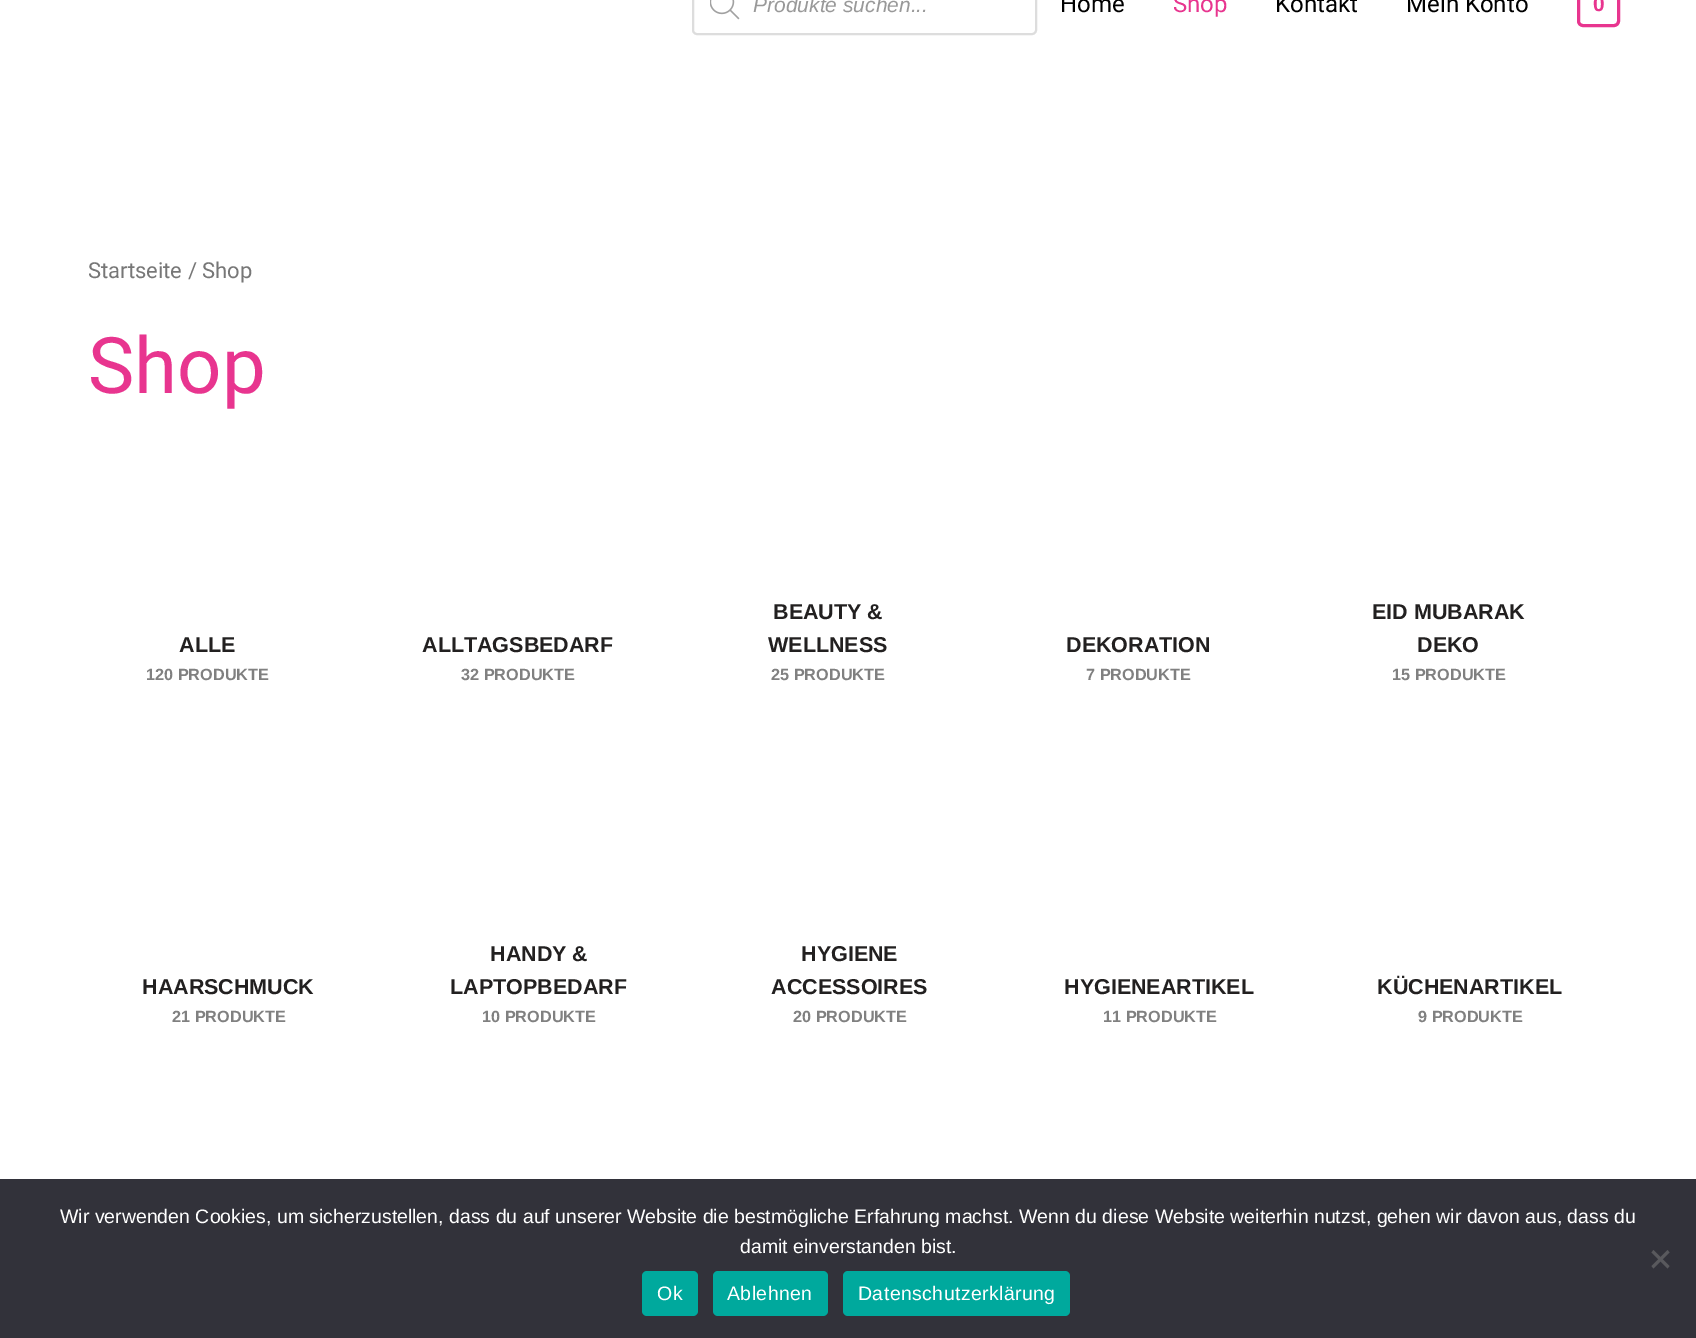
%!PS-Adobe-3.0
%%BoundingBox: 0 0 1696 1338
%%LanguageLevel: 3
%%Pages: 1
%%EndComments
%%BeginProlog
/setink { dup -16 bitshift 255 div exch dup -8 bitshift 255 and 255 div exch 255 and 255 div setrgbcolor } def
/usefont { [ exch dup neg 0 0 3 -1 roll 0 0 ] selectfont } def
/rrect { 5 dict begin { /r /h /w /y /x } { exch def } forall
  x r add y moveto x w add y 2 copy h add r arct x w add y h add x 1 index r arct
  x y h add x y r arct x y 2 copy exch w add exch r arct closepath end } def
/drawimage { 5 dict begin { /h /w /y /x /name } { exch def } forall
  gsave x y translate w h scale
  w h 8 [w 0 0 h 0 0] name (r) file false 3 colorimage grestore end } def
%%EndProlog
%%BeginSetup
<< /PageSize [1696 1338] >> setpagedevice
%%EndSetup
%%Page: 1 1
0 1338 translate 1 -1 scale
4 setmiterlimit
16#FFFFFF setink
0 0 1696 1338 rectfill
16#DDDDDD setink
2 setlinewidth
693 -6 343 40 4 rrect stroke
(img1.raw) 710 0 30 20 drawimage
/LiberationSans-Italic 21 usefont
16#999999 setink
753 12 moveto (Produkte suchen...) show
/Roboto-Regular 24 usefont
16#000000 setink
1060 12 moveto (Home) show
16#E8358F setink
1173 12 moveto (Shop) show
16#000000 setink
1275 12 moveto (Kontakt) show
1406 12 moveto (Mein Konto) show
16#E8358F setink
3 setlinewidth
1578.5 -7.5 moveto 1618.5 -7.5 lineto 1618.5 21 lineto 1618.5 23.5 1616.5 25.5 1614 25.5 curveto 1583 25.5 lineto 1580.5 25.5 1578.5 23.5 1578.5 21 curveto closepath stroke
/LiberationSans-Bold 21 usefont
1593 11 moveto (0) show
/Roboto-Regular 22 usefont
16#777777 setink
88 278 moveto (Startseite / Shop) show
/Roboto-Regular 78 usefont
16#E8358F setink
88 393 moveto (Shop) show
/LiberationSans-Bold 21.5 usefont
16#222020 setink
179 652 moveto (ALLE) show
/LiberationSans-Bold 16.25 usefont
16#808080 setink
146 680 moveto (120 PRODUKTE) show
/LiberationSans-Bold 21.5 usefont
16#222020 setink
422 652 moveto (ALLTAGSBEDARF) show
/LiberationSans-Bold 16.25 usefont
16#808080 setink
461 680 moveto (32 PRODUKTE) show
/LiberationSans-Bold 21.5 usefont
16#222020 setink
773 619 moveto (BEAUTY &) show
768 652 moveto (WELLNESS) show
/LiberationSans-Bold 16.25 usefont
16#808080 setink
771 680 moveto (25 PRODUKTE) show
/LiberationSans-Bold 21.5 usefont
16#222020 setink
1066 652 moveto (DEKORATION) show
/LiberationSans-Bold 16.25 usefont
16#808080 setink
1086 680 moveto (7 PRODUKTE) show
/LiberationSans-Bold 21.5 usefont
16#222020 setink
1372 619 moveto (EID MUBARAK) show
1417 652 moveto (DEKO) show
/LiberationSans-Bold 16.25 usefont
16#808080 setink
1392 680 moveto (15 PRODUKTE) show
/LiberationSans-Bold 21.5 usefont
16#222020 setink
142 994 moveto (HAARSCHMUCK) show
/LiberationSans-Bold 16.25 usefont
16#808080 setink
172 1022 moveto (21 PRODUKTE) show
/LiberationSans-Bold 21.5 usefont
16#222020 setink
490 961 moveto (HANDY &) show
450 994 moveto (LAPTOPBEDARF) show
/LiberationSans-Bold 16.25 usefont
16#808080 setink
482 1022 moveto (10 PRODUKTE) show
/LiberationSans-Bold 21.5 usefont
16#222020 setink
801 961 moveto (HYGIENE) show
771 994 moveto (ACCESSOIRES) show
/LiberationSans-Bold 16.25 usefont
16#808080 setink
793 1022 moveto (20 PRODUKTE) show
/LiberationSans-Bold 21.5 usefont
16#222020 setink
1064 994 moveto (HYGIENEARTIKEL) show
/LiberationSans-Bold 16.25 usefont
16#808080 setink
1103 1022 moveto (11 PRODUKTE) show
/LiberationSans-Bold 21.5 usefont
16#222020 setink
1377 994 moveto (KÜCHENARTIKEL) show
/LiberationSans-Bold 16.25 usefont
16#808080 setink
1418 1022 moveto (9 PRODUKTE) show
16#32323A setink
0 1179 1696 159 rectfill
/LiberationSans-Regular 19.5 usefont
16#FFFFFF setink
60 1223 moveto (Wir verwenden Cookies, um sicherzustellen, dass du auf unserer Website die bestmögliche Erfahrung machst. Wenn du diese Website weiterhin nutzst, gehen wir davon aus, dass du) show
740 1253 moveto (damit einverstanden bist.) show
16#59595D setink
1667.5 1250 moveto 1669.5 1252.5 lineto 1653.5 1268.5 lineto 1651.5 1266 lineto closepath fill
1651.5 1252.5 moveto 1653.5 1250 lineto 1669.5 1266 lineto 1667.5 1268.5 lineto closepath fill
16#00A99D setink
642 1271 56 45 5 rrect fill
16#FFFFFF setink
657 1300 moveto 0.4 0 (Ok) ashow
16#00A99D setink
713 1271 115 45 5 rrect fill
16#FFFFFF setink
727 1300 moveto 0.4 0 (Ablehnen) ashow
16#00A99D setink
843 1271 227 45 5 rrect fill
16#FFFFFF setink
858 1300 moveto 0.4 0 (Datenschutzerklärung) ashow
showpage
%%EOF
